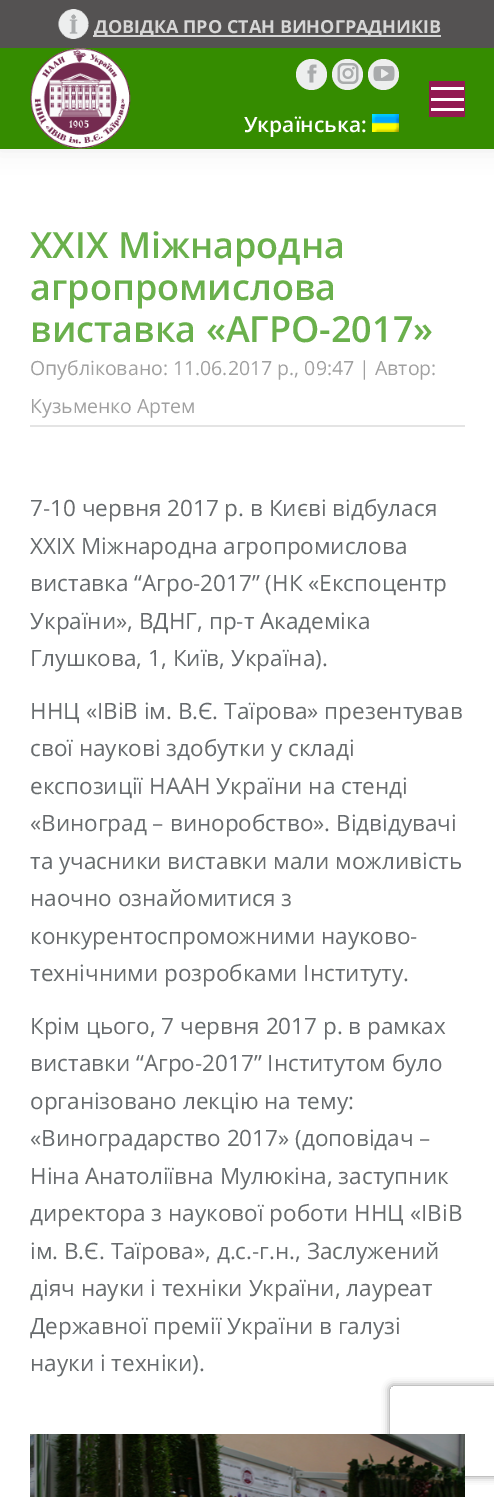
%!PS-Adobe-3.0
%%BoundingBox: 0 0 494 1497
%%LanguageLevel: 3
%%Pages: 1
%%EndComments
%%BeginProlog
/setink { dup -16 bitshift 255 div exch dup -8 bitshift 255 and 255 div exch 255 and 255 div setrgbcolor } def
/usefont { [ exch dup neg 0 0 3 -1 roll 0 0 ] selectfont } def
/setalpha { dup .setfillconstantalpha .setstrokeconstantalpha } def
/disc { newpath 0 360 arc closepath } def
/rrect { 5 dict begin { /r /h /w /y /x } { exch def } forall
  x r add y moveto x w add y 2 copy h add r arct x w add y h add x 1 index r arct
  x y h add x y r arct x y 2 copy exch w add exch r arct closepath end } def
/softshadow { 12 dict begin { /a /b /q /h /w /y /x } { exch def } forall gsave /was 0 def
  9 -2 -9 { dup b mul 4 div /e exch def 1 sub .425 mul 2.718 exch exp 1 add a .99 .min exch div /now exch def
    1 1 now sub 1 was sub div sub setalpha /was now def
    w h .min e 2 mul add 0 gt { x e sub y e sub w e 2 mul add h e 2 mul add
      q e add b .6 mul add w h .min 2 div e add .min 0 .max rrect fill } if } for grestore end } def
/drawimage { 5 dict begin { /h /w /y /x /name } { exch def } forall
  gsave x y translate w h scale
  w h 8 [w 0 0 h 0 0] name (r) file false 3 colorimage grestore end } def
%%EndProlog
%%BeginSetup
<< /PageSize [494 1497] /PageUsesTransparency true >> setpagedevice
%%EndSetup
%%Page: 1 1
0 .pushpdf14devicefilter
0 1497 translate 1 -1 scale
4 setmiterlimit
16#FFFFFF setink
0 0 494 1497 rectfill
16#000000 setink
-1 -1 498 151 0 11 0.07 softshadow
16#358C00 setink
0 48 494 101 rectfill
16#545252 setink
0 0 494 48 rectfill
(img1.raw) 58 9 31 30 drawimage
16#D6D6D6 setink
93 35 348 2 rectfill
/OpenSans-Bold 18 usefont
94 33 moveto (ДОВІДКА ПРО СТАН ВИНОГРАДНИКІВ) show
(img2.raw) 30 48 101 101 drawimage
[
    [429 81 36 36 16#921A52]
    [431 87 33 3 16#FFFFFF]
    [431 98 33 3 16#FFFFFF]
    [431 108 33 3 16#FFFFFF]
] { aload pop setink rectfill } forall
16#EDEEEE setink
311.5 74.5 15.5 disc fill
(img3.raw) 307 64 10 19 drawimage
347.5 74.5 15.5 disc fill
(img4.raw) 337 63 22 21 drawimage
383.5 74.5 15.5 disc fill
(img5.raw) 373 66 22 15 drawimage
/OpenSans-SemiBold 21 usefont
16#FFFFFF setink
244 132 moveto (Українська:) show
(img6.raw) 372 114 27 18 drawimage
/OpenSans-SemiBold 36 usefont
16#6AB04C setink
[
    [(XXIX Міжнародна) 30 258]
    [(агропромислова) 30 300]
    [(виставка «АГРО-2017») 30 342]
] { aload pop moveto show } forall
/OpenSans-Regular 19.5 usefont
16#A0A0A0 setink
30 375 moveto (Опубліковано: 11.06.2017 р., 09:47 | Автор:) show
30 413 moveto (Кузьменко Артем) show
16#E4E4E4 setink
30 425 435 2 rectfill
/OpenSans-Regular 22.5 usefont
16#676B6D setink
[
    [(7-10 червня 2017 р. в Києві відбулася) 30 516]
    [(XXIX Міжнародна агропромислова) 30 554]
    [(виставка “Агро-2017” \(НК «Експоцентр) 30 591]
    [(України», ВДНГ, пр-т Академіка) 30 629]
    [(Глушкова, 1, Київ, Україна\).) 30 666]
    [(ННЦ «ІВіВ ім. В.Є. Таїрова» презентував) 30 719]
    [(свої наукові здобутки у складі) 30 756]
    [(експозиції НААН України на стенді) 30 794]
    [(«Виноград – виноробство». Відвідувачі) 30 831]
    [(та учасники виставки мали можливість) 30 869]
    [(наочно ознайомитися з) 30 906]
    [(конкурентоспроможними науково-) 30 944]
    [(технічними розробками Інституту.) 30 981]
    [(Крім цього, 7 червня 2017 р. в рамках) 30 1034]
    [(виставки “Агро-2017” Інститутом було) 30 1071]
    [(організовано лекцію на тему:) 30 1109]
    [(«Виноградарство 2017» \(доповідач –) 30 1146]
    [(Ніна Анатоліївна Мулюкіна, заступник) 30 1184]
    [(директора з наукової роботи ННЦ «ІВіВ) 30 1221]
    [(ім. В.Є. Таїрова», д.с.-г.н., Заслужений) 30 1259]
    [(діяч науки і техніки України, лауреат) 30 1296]
    [(Державної премії України в галузі) 30 1334]
    [(науки і техніки\).) 30 1371]
] { aload pop moveto show } forall
gsave
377 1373 moveto 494 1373 lineto 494 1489 lineto 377 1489 lineto closepath 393 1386 moveto 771 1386 lineto 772.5 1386 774 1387.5 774 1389 curveto 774 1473 lineto 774 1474.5 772.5 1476 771 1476 curveto 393 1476 lineto 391.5 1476 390 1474.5 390 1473 curveto 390 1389 lineto 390 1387.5 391.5 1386 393 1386 curveto closepath eoclip newpath
16#808080 setink
390 1386 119 90 3 4 1 softshadow
grestore
(img7.raw) 30 1434 435 63 drawimage
.poppdf14devicefilter showpage
%%EOF
